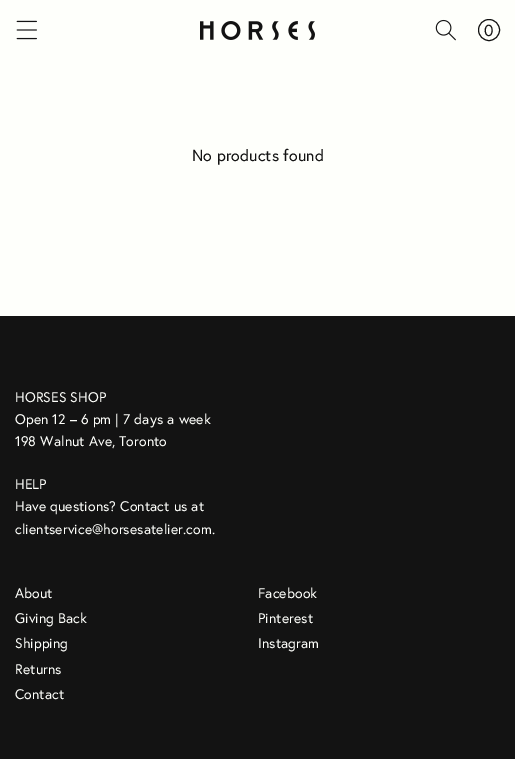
%!PS-Adobe-3.0
%%BoundingBox: 0 0 515 759
%%LanguageLevel: 3
%%Pages: 1
%%EndComments
%%BeginProlog
/setink { dup -16 bitshift 255 div exch dup -8 bitshift 255 and 255 div exch 255 and 255 div setrgbcolor } def
/usefont { [ exch dup neg 0 0 3 -1 roll 0 0 ] selectfont } def
/disc { newpath 0 360 arc closepath } def
/drawimage { 5 dict begin { /h /w /y /x /name } { exch def } forall
  gsave x y translate w h scale
  w h 8 [w 0 0 h 0 0] name (r) file false 3 colorimage grestore end } def
%%EndProlog
%%BeginSetup
<< /PageSize [515 759] >> setpagedevice
%%EndSetup
%%Page: 1 1
0 759 translate 1 -1 scale
4 setmiterlimit
16#FEFFFB setink
0 0 515 759 rectfill
(img1.raw) 16 20 21 20 drawimage
(img2.raw) 200 21 115 19 drawimage
(img3.raw) 435 19 21 22 drawimage
16#131313 setink
489 30 10.5 disc stroke
/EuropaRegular-Regular 16 usefont
484 36 moveto (0) show
192 161 moveto 0.1 0 (No products found) ashow
0 316 515 443 rectfill
/EuropaRegular-Regular 14 usefont
16#FEFFFB setink
15 402 moveto 0.1 0 (HORSES SHOP) ashow
15 424 moveto 0.1 0 (Open 12 – 6 pm | 7 days a week) ashow
15 446 moveto 0.1 0 (198 Walnut Ave, Toronto) ashow
15 489 moveto 0.1 0 (HELP) ashow
15 511 moveto 0.1 0 (Have questions? Contact us at) ashow
15 534 moveto 0.1 0 (clientservice@horsesatelier.com.) ashow
15 598 moveto 0.1 0 (About) ashow
15 623 moveto 0.1 0 (Giving Back) ashow
15 648 moveto 0.1 0 (Shipping) ashow
15 674 moveto 0.1 0 (Returns) ashow
15 699 moveto 0.1 0 (Contact) ashow
258 598 moveto 0.1 0 (Facebook) ashow
258 623 moveto 0.1 0 (Pinterest) ashow
258 648 moveto 0.1 0 (Instagram) ashow
showpage
%%EOF
